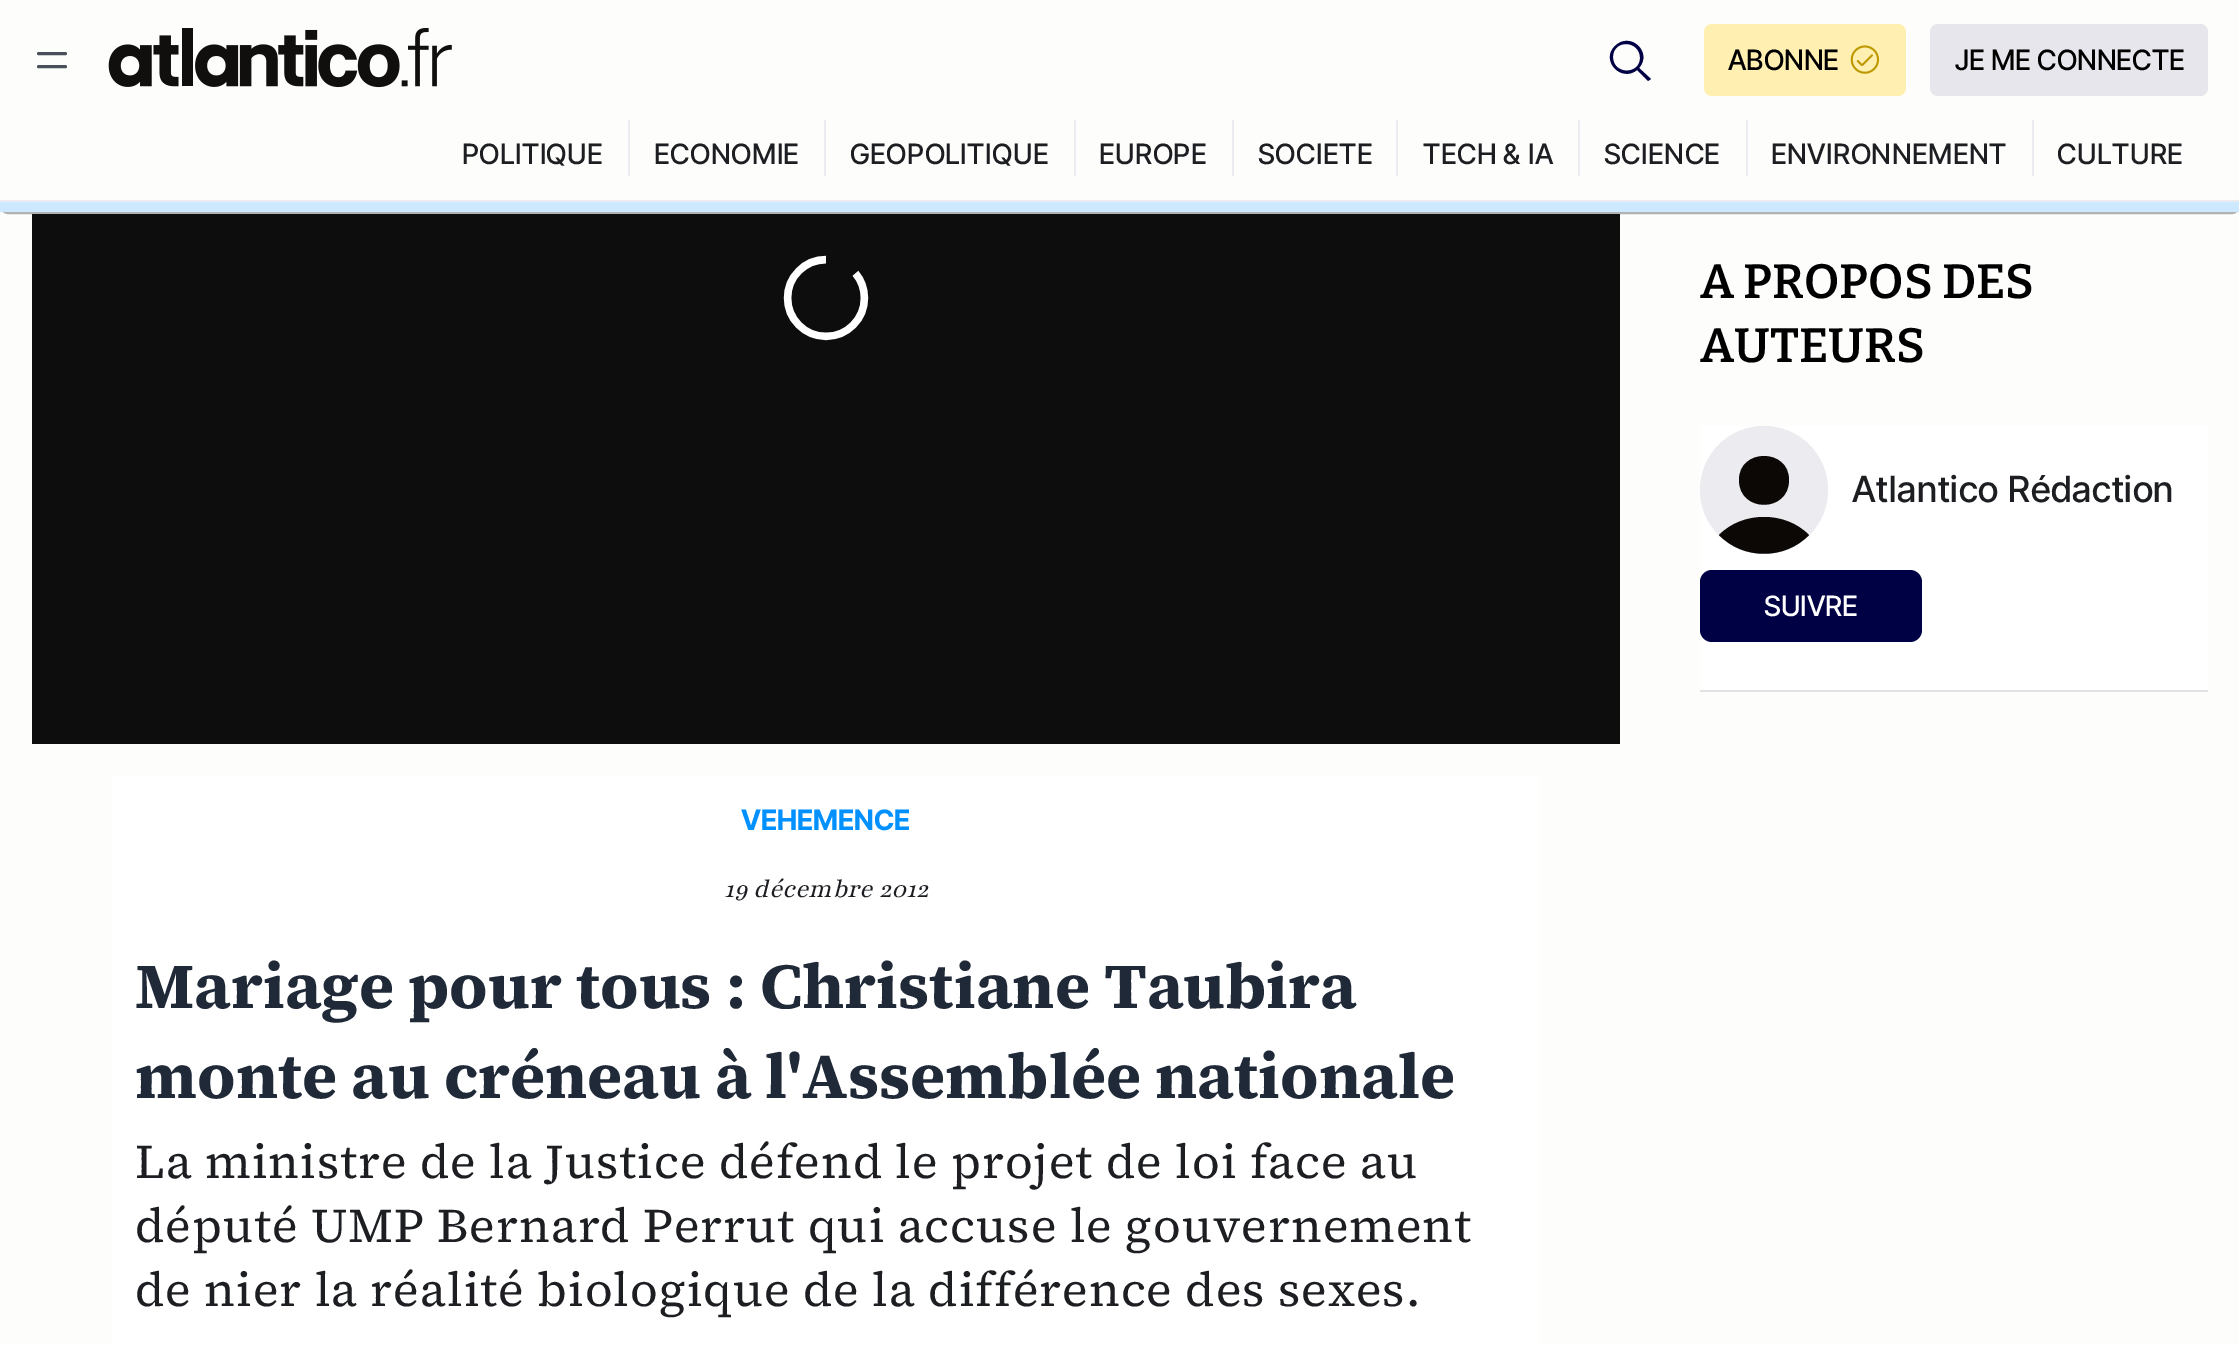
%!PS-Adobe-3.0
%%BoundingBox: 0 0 2239 1345
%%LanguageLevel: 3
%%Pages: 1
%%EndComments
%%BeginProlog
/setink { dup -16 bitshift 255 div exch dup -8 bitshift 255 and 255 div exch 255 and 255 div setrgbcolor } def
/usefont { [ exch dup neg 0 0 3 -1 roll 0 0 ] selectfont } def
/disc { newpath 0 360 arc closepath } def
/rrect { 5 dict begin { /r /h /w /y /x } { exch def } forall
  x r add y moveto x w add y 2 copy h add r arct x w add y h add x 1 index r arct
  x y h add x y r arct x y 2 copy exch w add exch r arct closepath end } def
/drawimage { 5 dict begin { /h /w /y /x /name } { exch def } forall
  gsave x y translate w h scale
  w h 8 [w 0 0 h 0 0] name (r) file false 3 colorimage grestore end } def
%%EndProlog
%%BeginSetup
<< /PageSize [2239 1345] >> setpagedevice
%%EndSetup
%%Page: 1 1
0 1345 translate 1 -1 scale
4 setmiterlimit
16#FDFDFC setink
0 0 2239 1345 rectfill
16#B2B2B2 setink
2 setlinewidth
1 199 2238 14 7 rrect stroke
16#FDFDFC setink
3 198 2234 2 rectfill
16#EBEBF0 setink
0 200 2239 2 rectfill
16#494F5A setink
3 setlinewidth
1 setlinecap
1 setlinejoin
38.5 53.5 moveto 65.5 53.5 lineto 38.5 66.5 moveto 65.5 66.5 lineto stroke
(img1.raw) 108 28 344 60 drawimage
16#000044 setink
1651 79 moveto 1639 68 lineto 1653 52 1630 31 1615 46 curveto 1600 60 1621 83 1637 70 curveto 1648 81 lineto closepath 1613 57 moveto 1613 39 1640 40 1640 58 curveto 1640 75 1613 75 1613 57 curveto closepath fill
16#FFF0B2 setink
1704 24 202 72 8 rrect fill
/InterTight-Medium 28 usefont
16#000000 setink
1728 70 moveto (ABONNE) show
(img2.raw) 1850 45 30 29 drawimage
16#E6E6EC setink
1930 24 278 72 8 rrect fill
16#000000 setink
1955 70 moveto (JE ME CONNECTE) show
16#EBEBF0 setink
628 120 2 56 rectfill
16#1C1E22 setink
462 164 moveto 0.5 0 (POLITIQUE) ashow
16#EBEBF0 setink
824 120 2 56 rectfill
16#1C1E22 setink
654 164 moveto 0.5 0 (ECONOMIE) ashow
16#EBEBF0 setink
1074 120 2 56 rectfill
16#1C1E22 setink
850 164 moveto 0.5 0 (GEOPOLITIQUE) ashow
16#EBEBF0 setink
1232 120 2 56 rectfill
16#1C1E22 setink
1099 164 moveto 0.5 0 (EUROPE) ashow
16#EBEBF0 setink
1396 120 2 56 rectfill
16#1C1E22 setink
1258 164 moveto 0.5 0 (SOCIETE) ashow
16#EBEBF0 setink
1578 120 2 56 rectfill
16#1C1E22 setink
1423 164 moveto 0.5 0 (TECH & IA) ashow
16#EBEBF0 setink
1746 120 2 56 rectfill
16#1C1E22 setink
1604 164 moveto 0.5 0 (SCIENCE) ashow
16#EBEBF0 setink
2032 120 2 56 rectfill
16#1C1E22 setink
1771 164 moveto 0.5 0 (ENVIRONNEMENT) ashow
2057 164 moveto 0.5 0 (CULTURE) ashow
16#CCE9FF setink
0 202 2239 10 rectfill
/Bitter-SemiBold 48 usefont
16#000000 setink
1700 298 moveto (A PROPOS DES) show
1700 362 moveto (AUTEURS) show
16#FFFFFF setink
1700 426 508 264 rectfill
16#E0E2E6 setink
1700 690 508 2 rectfill
16#EBEBF0 setink
1764 490 64 disc fill
16#0B0806 setink
1789 480 moveto 1789 513 1739 513 1739 480 curveto 1739 448 1789 448 1789 480 curveto closepath fill
1764 517 moveto 1747 517 1731 523 1719 535 curveto 1743 560 1785 560 1809 535 curveto 1797 523 1781 517 1764 517 curveto closepath fill
/InterTight-Medium 36 usefont
16#1C1E22 setink
1852 502 moveto 0.75 0 (Atlantico Rédaction) ashow
16#000044 setink
1700 570 222 72 12 rrect fill
/InterTight-Medium 28 usefont
16#FFFFFF setink
1764 616 moveto (SUIVRE) show
(img3.raw) 32 214 1588 530 drawimage
112 776 1428 569 rectfill
/InterTight-Bold 28 usefont
16#0090FF setink
741 830 moveto (VEHEMENCE) show
/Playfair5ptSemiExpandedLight-Italic 28 usefont
16#1C1E22 setink
724 897 moveto (19 décembre 2012) show
/SourceSerif4-Bold 64 usefont
16#1F2937 setink
135 1008 moveto (Mariage pour tous : Christiane Taubira) show
135 1098 moveto (monte au créneau à l'Assemblée nationale) show
/SourceSerif4-Regular 48 usefont
16#1C1E22 setink
135 1178 moveto 0.95 0 (La ministre de la Justice défend le projet de loi face au) ashow
135 1242 moveto 0.95 0 (député UMP Bernard Perrut qui accuse le gouvernement) ashow
135 1306 moveto 0.95 0 (de nier la réalité biologique de la différence des sexes.) ashow
showpage
%%EOF
